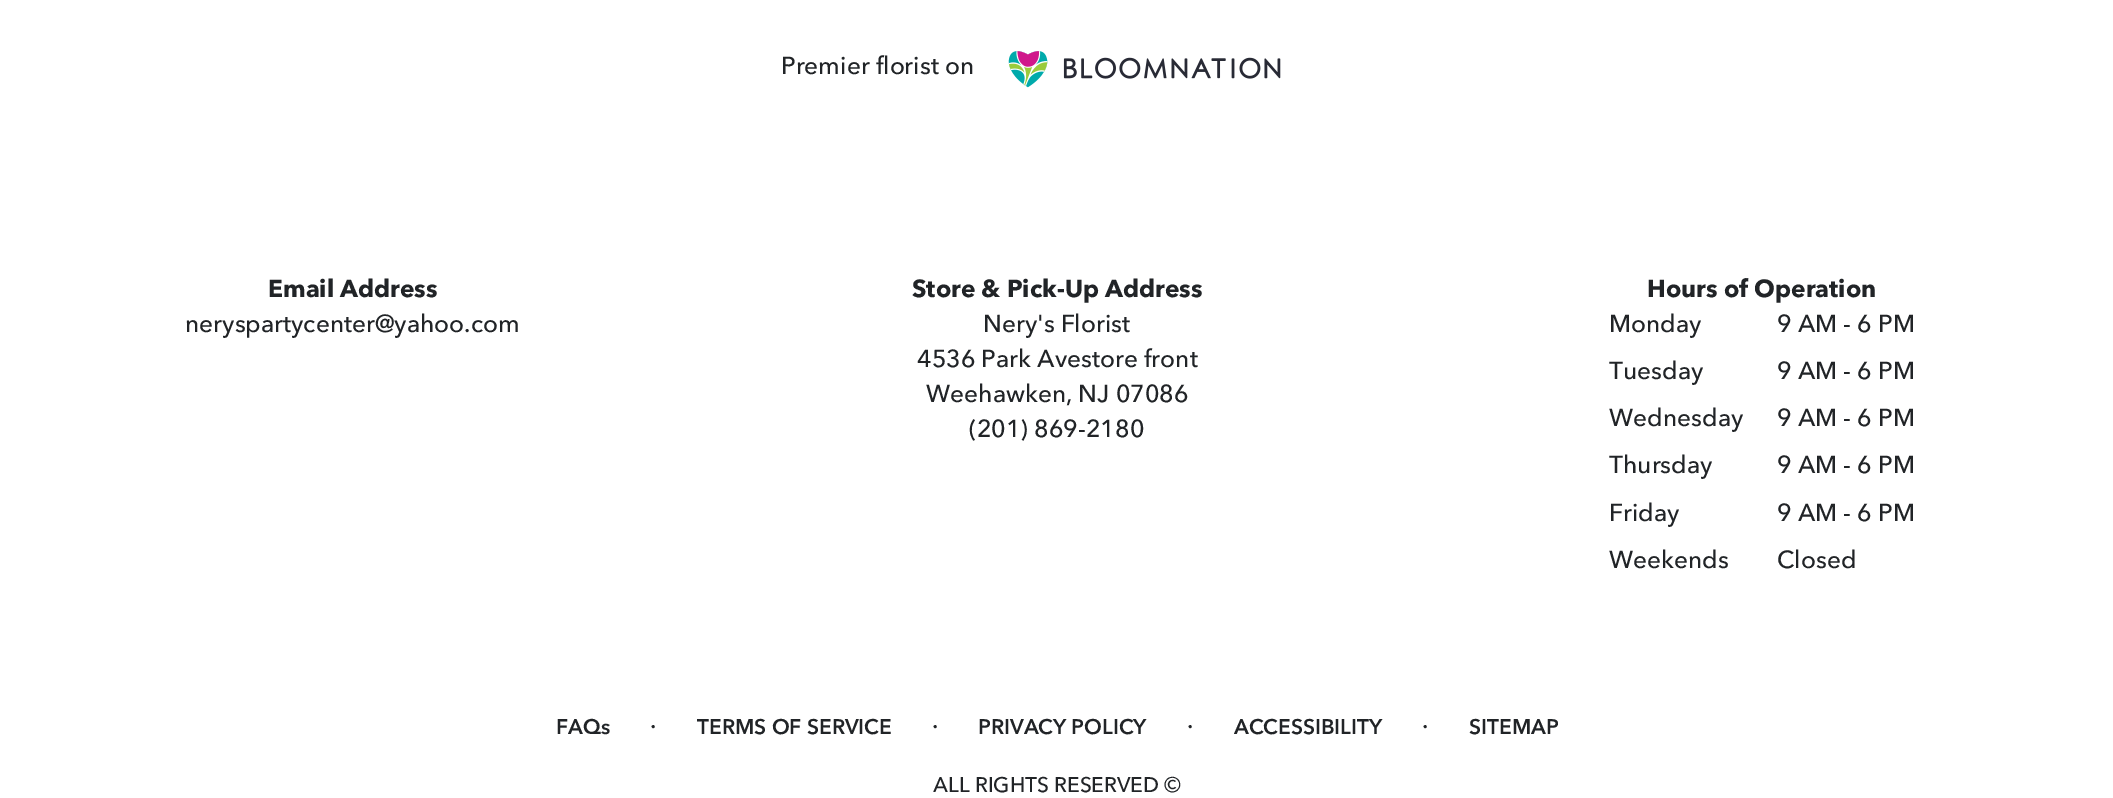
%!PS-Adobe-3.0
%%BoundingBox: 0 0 2113 798
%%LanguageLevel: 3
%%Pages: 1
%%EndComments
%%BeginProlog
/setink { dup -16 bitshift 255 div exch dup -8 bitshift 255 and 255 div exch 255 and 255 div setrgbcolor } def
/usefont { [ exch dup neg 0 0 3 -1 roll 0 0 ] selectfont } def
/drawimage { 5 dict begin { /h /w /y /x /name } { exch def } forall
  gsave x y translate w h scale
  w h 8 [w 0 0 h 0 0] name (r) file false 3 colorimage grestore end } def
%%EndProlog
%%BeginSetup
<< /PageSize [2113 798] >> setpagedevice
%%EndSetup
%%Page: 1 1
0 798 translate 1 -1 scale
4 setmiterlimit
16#FFFFFF setink
0 0 2113 798 rectfill
/AvenirNext-Medium 24.5 usefont
16#212427 setink
781 74 moveto (Premier florist on) show
(img1.raw) 1008 51 273 37 drawimage
/AvenirNext-Bold 24.5 usefont
268 297 moveto (Email Address) show
/AvenirNext-Medium 24.5 usefont
185 332 moveto (neryspartycenter@yahoo.com) show
/AvenirNext-Bold 24.5 usefont
912 297 moveto (Store & Pick-Up Address) show
/AvenirNext-Medium 24.5 usefont
[
    [(Nery's Florist) 983 332]
    [(4536 Park Avestore front) 917 367]
    [(Weehawken, NJ 07086) 926 402]
    [(\(201\) 869-2180) 969 437]
] { aload pop moveto show } forall
/AvenirNext-Bold 24.5 usefont
1647 297 moveto (Hours of Operation) show
/AvenirNext-Medium 24.5 usefont
[
    [(Monday) 1609 332]
    [(9 AM - 6 PM) 1777 332]
    [(Tuesday) 1609 379]
    [(9 AM - 6 PM) 1777 379]
    [(Wednesday) 1609 426]
    [(9 AM - 6 PM) 1777 426]
    [(Thursday) 1609 473]
    [(9 AM - 6 PM) 1777 473]
    [(Friday) 1609 521]
    [(9 AM - 6 PM) 1777 521]
    [(Weekends) 1609 568]
    [(Closed) 1777 568]
] { aload pop moveto show } forall
/AvenirNext-SemiBold 21 usefont
556 734 moveto (FAQs) show
/AvenirNext-Medium 24.5 usefont
650 734 moveto (·) show
/AvenirNext-SemiBold 21 usefont
697 734 moveto (TERMS OF SERVICE) show
/AvenirNext-Medium 24.5 usefont
932 734 moveto (·) show
/AvenirNext-SemiBold 21 usefont
978 734 moveto (PRIVACY POLICY) show
/AvenirNext-Medium 24.5 usefont
1187 734 moveto (·) show
/AvenirNext-SemiBold 21 usefont
1234 734 moveto (ACCESSIBILITY) show
/AvenirNext-Medium 24.5 usefont
1422 734 moveto (·) show
/AvenirNext-SemiBold 21 usefont
1469 734 moveto (SITEMAP) show
/AvenirNext-Medium 21 usefont
933 792 moveto (ALL RIGHTS RESERVED ©) show
showpage
%%EOF
